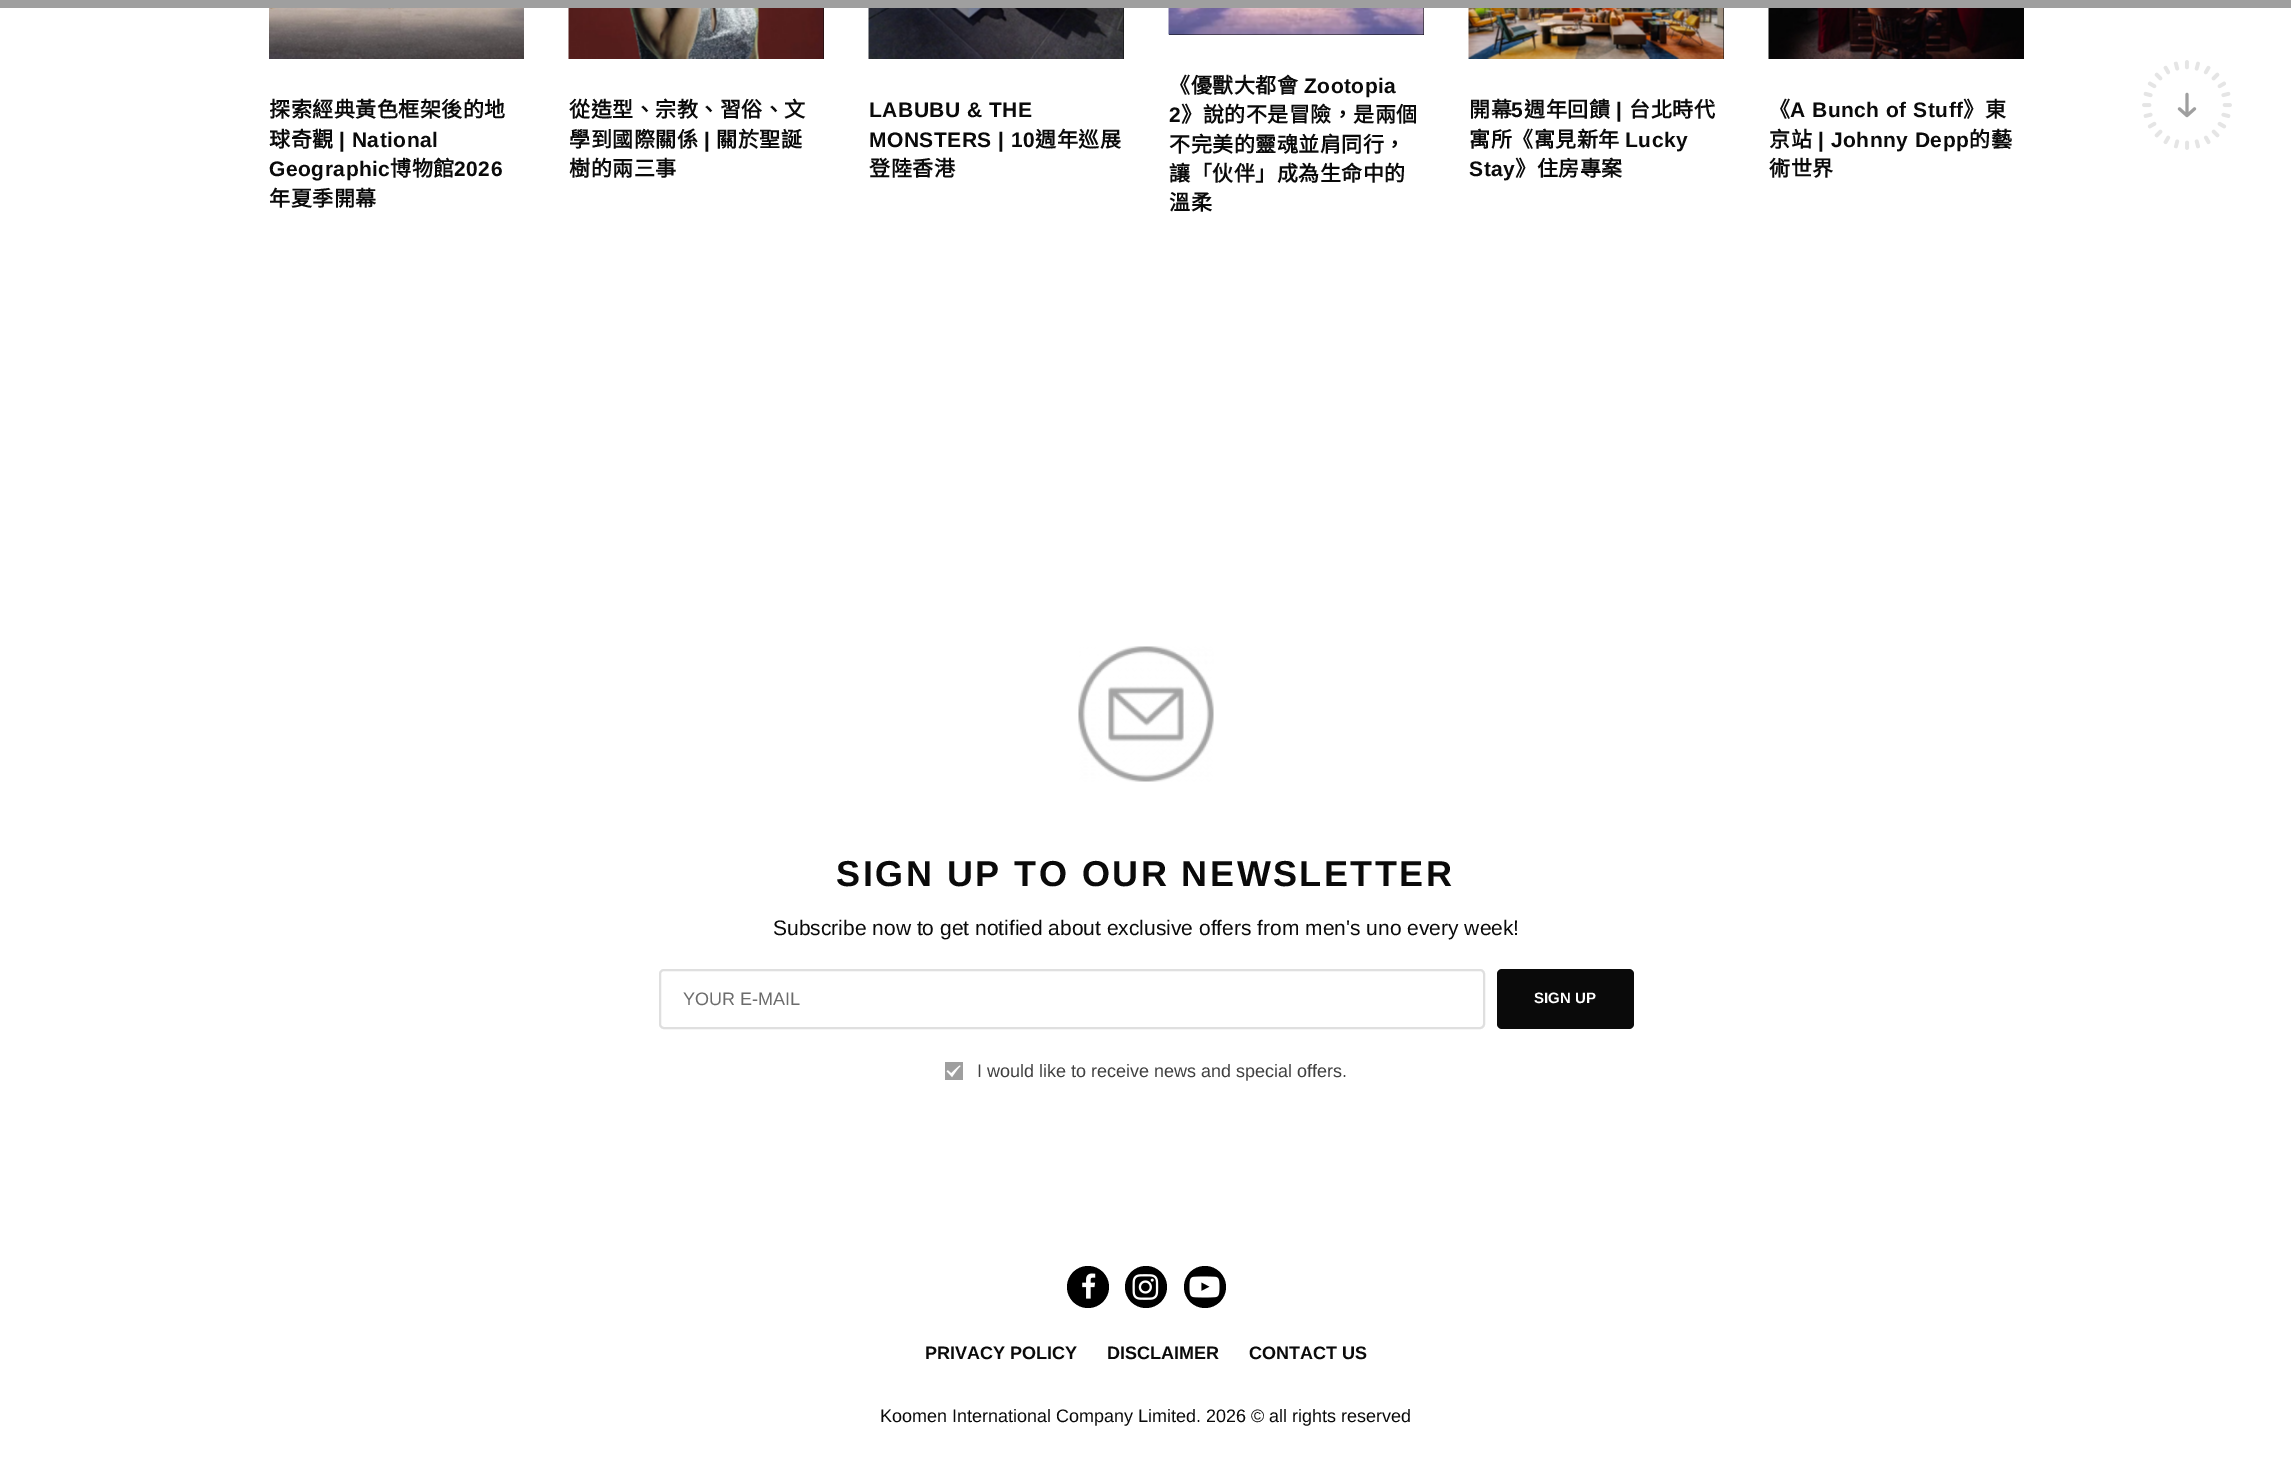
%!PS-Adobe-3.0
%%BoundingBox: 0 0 2291 1463
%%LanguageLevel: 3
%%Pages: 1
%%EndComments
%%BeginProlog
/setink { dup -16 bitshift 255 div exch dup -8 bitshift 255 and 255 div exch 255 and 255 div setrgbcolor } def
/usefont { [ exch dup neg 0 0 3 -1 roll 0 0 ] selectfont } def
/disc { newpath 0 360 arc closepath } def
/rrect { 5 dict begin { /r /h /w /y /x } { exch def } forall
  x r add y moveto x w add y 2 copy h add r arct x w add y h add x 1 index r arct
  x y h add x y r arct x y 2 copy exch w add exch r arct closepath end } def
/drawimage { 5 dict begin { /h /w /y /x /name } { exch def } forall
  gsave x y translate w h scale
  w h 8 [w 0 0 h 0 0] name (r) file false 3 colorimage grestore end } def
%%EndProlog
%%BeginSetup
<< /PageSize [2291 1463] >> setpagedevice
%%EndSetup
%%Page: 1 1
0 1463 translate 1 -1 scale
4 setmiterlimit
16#FFFFFF setink
0 0 2291 1463 rectfill
16#9F9F9F setink
0 0 2291 8 rectfill
(img1.raw) 269 8 255 51 drawimage
/NotoSansCJKHK-Bold 21 usefont
16#0A0A0A setink
269 117 moveto 0.5 0 (探索經典黃色框架後的地) ashow
269 147 moveto 0.5 0 (球奇觀) ashow
/LiberationSans-Bold 21 usefont
339 147 moveto 0.5 0 (| National) ashow
269 176 moveto 0.5 0 (Geographic) ashow
/NotoSansCJKHK-Bold 21 usefont
390 176 moveto 0.5 0 (博物館) ashow
/LiberationSans-Bold 21 usefont
454 176 moveto 0.5 0 (2026) ashow
/NotoSansCJKHK-Bold 21 usefont
269 206 moveto 0.5 0 (年夏季開幕) ashow
823 8 1 51 rectfill
(img2.raw) 568 8 256 51 drawimage
569 117 moveto 0.5 0 (從造型、宗教、習俗、文) ashow
569 147 moveto 0.5 0 (學到國際關係) ashow
/LiberationSans-Bold 21 usefont
704 147 moveto 0.5 0 (|) ashow
/NotoSansCJKHK-Bold 21 usefont
716 147 moveto 0.5 0 (關於聖誕) ashow
569 176 moveto 0.5 0 (樹的兩三事) ashow
1123 8 1 51 rectfill
(img3.raw) 868 8 256 51 drawimage
/LiberationSans-Bold 21 usefont
869 117 moveto 0.5 0 (LABUBU & THE) ashow
869 147 moveto 0.5 0 (MONSTERS | 10) ashow
/NotoSansCJKHK-Bold 21 usefont
1035 147 moveto 0.5 0 (週年巡展) ashow
869 176 moveto 0.5 0 (登陸香港) ashow
1169 8 255 27 rectfill
(img4.raw) 1168 8 256 27 drawimage
1169 93 moveto 0.5 0 (《優獸大都會) ashow
/LiberationSans-Bold 21 usefont
1304 93 moveto 0.5 0 (Zootopia) ashow
1169 122 moveto 0.5 0 (2) ashow
/NotoSansCJKHK-Bold 21 usefont
1181 122 moveto 0.5 0 (》說的不是冒險，是兩個) ashow
1169 152 moveto 0.5 0 (不完美的靈魂並肩同行，) ashow
1169 181 moveto 0.5 0 (讓「伙伴」成為生命中的) ashow
1169 210 moveto 0.5 0 (溫柔) ashow
1723 8 1 51 rectfill
(img5.raw) 1468 8 256 51 drawimage
1469 117 moveto 0.5 0 (開幕) ashow
/LiberationSans-Bold 21 usefont
1511 117 moveto 0.5 0 (5) ashow
/NotoSansCJKHK-Bold 21 usefont
1524 117 moveto 0.5 0 (週年回饋) ashow
/LiberationSans-Bold 21 usefont
1616 117 moveto 0.5 0 (|) ashow
/NotoSansCJKHK-Bold 21 usefont
1629 117 moveto 0.5 0 (台北時代) ashow
1469 147 moveto 0.5 0 (寓所《寓見新年) ashow
/LiberationSans-Bold 21 usefont
1625 147 moveto 0.5 0 (Lucky) ashow
1469 176 moveto 0.5 0 (Stay) ashow
/NotoSansCJKHK-Bold 21 usefont
1515 176 moveto 0.5 0 (》住房專案) ashow
(img6.raw) 1768 8 256 51 drawimage
1769 117 moveto 0.5 0 (《) ashow
/LiberationSans-Bold 21 usefont
1790 117 moveto 0.5 0 (A Bunch of Stuff) ashow
/NotoSansCJKHK-Bold 21 usefont
1963 117 moveto 0.5 0 (》東) ashow
1769 147 moveto 0.5 0 (京站) ashow
/LiberationSans-Bold 21 usefont
1818 147 moveto 0.5 0 (| Johnny Depp) ashow
/NotoSansCJKHK-Bold 21 usefont
1969 147 moveto 0.5 0 (的藝) ashow
1769 176 moveto 0.5 0 (術世界) ashow
(img7.raw) 2142 60 90 90 drawimage
(img8.raw) 1078 646 136 136 drawimage
/LiberationSans-Bold 36 usefont
836 886 moveto 2.5 0 (SIGN UP TO OUR NEWSLETTER) ashow
/LiberationSans-Regular 21 usefont
773 935 moveto (Subscribe now to get notified about exclusive offers from men's uno every week!) show
16#DFDFDF setink
2 setlinewidth
660 970 824 58 4 rrect stroke
/LiberationSans-Regular 18 usefont
16#6C6C6C setink
683 1005 moveto (YOUR E-MAIL) show
16#0A0A0A setink
1497 969 137 60 5 rrect fill
/LiberationSans-Bold 15 usefont
16#FFFFFF setink
1534 1003 moveto (SIGN UP) show
16#9F9F9F setink
945 1062 18 18 rectfill
(img9.raw) 946 1065 15 13 drawimage
/LiberationSans-Regular 18 usefont
16#404040 setink
977 1077 moveto (I would like to receive news and special offers.) show
16#000000 setink
1088 1287 21 disc fill
(img10.raw) 1082 1273 14 26 drawimage
1146 1287 21 disc fill
(img11.raw) 1132 1274 27 26 drawimage
1205 1287 21 disc fill
(img12.raw) 1189 1276 31 22 drawimage
/LiberationSans-Bold 18 usefont
16#0A0A0A setink
[
    [(PRIVACY POLICY) 925 1359]
    [(DISCLAIMER) 1107 1359]
    [(CONTACT US) 1249 1359]
] { aload pop moveto show } forall
/LiberationSans-Regular 18 usefont
880 1422 moveto (Koomen International Company Limited. 2026 © all rights reserved) show
showpage
%%EOF
